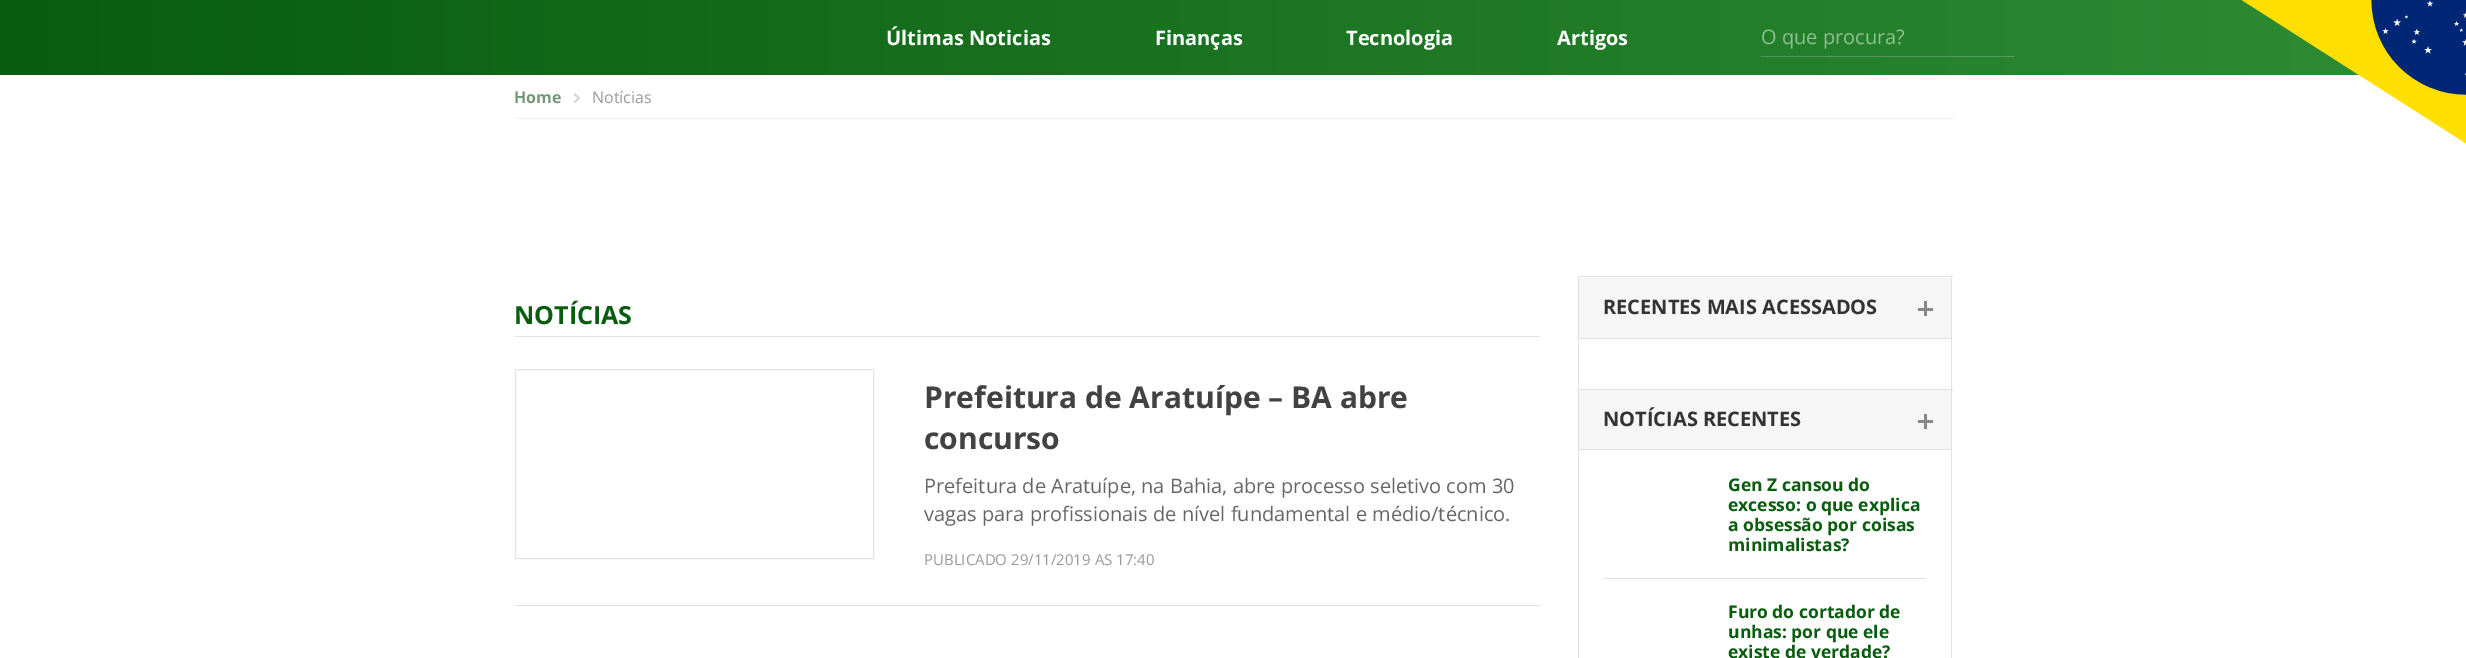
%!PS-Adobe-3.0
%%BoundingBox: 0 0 2466 658
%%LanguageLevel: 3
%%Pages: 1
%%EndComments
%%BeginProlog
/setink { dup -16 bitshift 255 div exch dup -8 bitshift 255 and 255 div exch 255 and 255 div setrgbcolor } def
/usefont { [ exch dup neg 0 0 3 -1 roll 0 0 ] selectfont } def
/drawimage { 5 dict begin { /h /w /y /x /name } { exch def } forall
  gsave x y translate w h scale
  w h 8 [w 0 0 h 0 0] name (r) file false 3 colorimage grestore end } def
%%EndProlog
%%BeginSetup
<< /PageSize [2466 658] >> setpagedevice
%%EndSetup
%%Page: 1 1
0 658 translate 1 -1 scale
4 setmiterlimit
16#FFFFFF setink
0 0 2466 658 rectfill
gsave 0 0 moveto 2359 0 lineto 2359 75 lineto 0 75 lineto closepath clip newpath
<< /ShadingType 2 /ColorSpace /DeviceRGB /Coords [2466 37 0 38] /Extend [true true] /Function << /FunctionType 2 /Domain [0 1] /C0 [0.18 0.553 0.208] /C1 [0.031 0.361 0.055] /N 1 >> >> shfill grestore
gsave 1761 56 moveto 2014 56 lineto 2014 57 lineto 1761 57 lineto closepath clip newpath
<< /ShadingType 2 /ColorSpace /DeviceRGB /Coords [2466 37 0 38] /Extend [true true] /Function << /FunctionType 2 /Domain [0 1] /C0 [0.345 0.643 0.365] /C1 [0.224 0.49 0.243] /N 1 >> >> shfill grestore
/OpenSans-Bold 20 usefont
[
    [(Últimas Noticias) 886 45]
    [(Finanças) 1155 45]
    [(Tecnologia) 1346 45]
    [(Artigos) 1557 45]
] { aload pop moveto show } forall
/OpenSans-Regular 20 usefont
16#92C095 setink
1761 44 moveto (O que procura?) show
(img1.raw) 2241 0 225 144 drawimage
16#EEEEEE setink
515 118 1438 1 rectfill
/OpenSans-Bold 16 usefont
16#749676 setink
514 103 moveto (Home) show
(img2.raw) 573 93 7 10 drawimage
/OpenSans-Regular 16 usefont
16#999999 setink
592 103 moveto (Notícias) show
16#E2E2E2 setink
515 336 1025 1 rectfill
/OpenSans-Bold 25 usefont
16#085C0D setink
514 324 moveto (NOTÍCIAS) show
16#E2E2E2 setink
515 605 1025 1 rectfill
515.5 369.5 358 189 rectstroke
/OpenSans-Bold 30 usefont
16#424242 setink
924 408 moveto (Prefeitura de Aratuípe – BA abre) show
924 449 moveto (concurso) show
/OpenSans-Regular 20 usefont
16#666666 setink
924 493 moveto (Prefeitura de Aratuípe, na Bahia, abre processo seletivo com 30) show
924 521 moveto (vagas para profissionais de nível fundamental e médio/técnico.) show
/OpenSans-Regular 15 usefont
16#999999 setink
924 565 moveto (PUBLICADO 29/11/2019 AS 17:40) show
[
    [1578 276 375 1 16#E2E2E2]
    [1951 276 1 113 16#E2E2E2]
    [1578 276 1 113 16#E2E2E2]
    [1579 278 372 60 16#F6F6F6]
    [1579 338 372 1 16#E2E2E2]
] { aload pop setink rectfill } forall
/OpenSans-Bold 20 usefont
16#333333 setink
1603 314 moveto (RECENTES MAIS ACESSADOS) show
[
    [1924 301 3 15 16#878787]
    [1918 308 15 3 16#878787]
    [1578 389 375 1 16#E2E2E2]
    [1951 389 1 269 16#E2E2E2]
    [1578 389 1 269 16#E2E2E2]
    [1579 390 372 59 16#F6F6F6]
    [1579 449 372 1 16#E2E2E2]
] { aload pop setink rectfill } forall
16#333333 setink
1603 426 moveto (NOTÍCIAS RECENTES) show
[
    [1924 414 3 15 16#878787]
    [1918 420 15 3 16#878787]
    [1604 578 322 1 16#E1E1E1]
] { aload pop setink rectfill } forall
/OpenSans-Bold 17.5 usefont
16#085C0D setink
[
    [(Gen Z cansou do) 1728 491]
    [(excesso: o que explica) 1728 511]
    [(a obsessão por coisas) 1728 531]
    [(minimalistas?) 1728 551]
    [(Furo do cortador de) 1728 618]
    [(unhas: por que ele) 1728 638]
    [(existe de verdade?) 1728 658]
] { aload pop moveto show } forall
showpage
%%EOF
